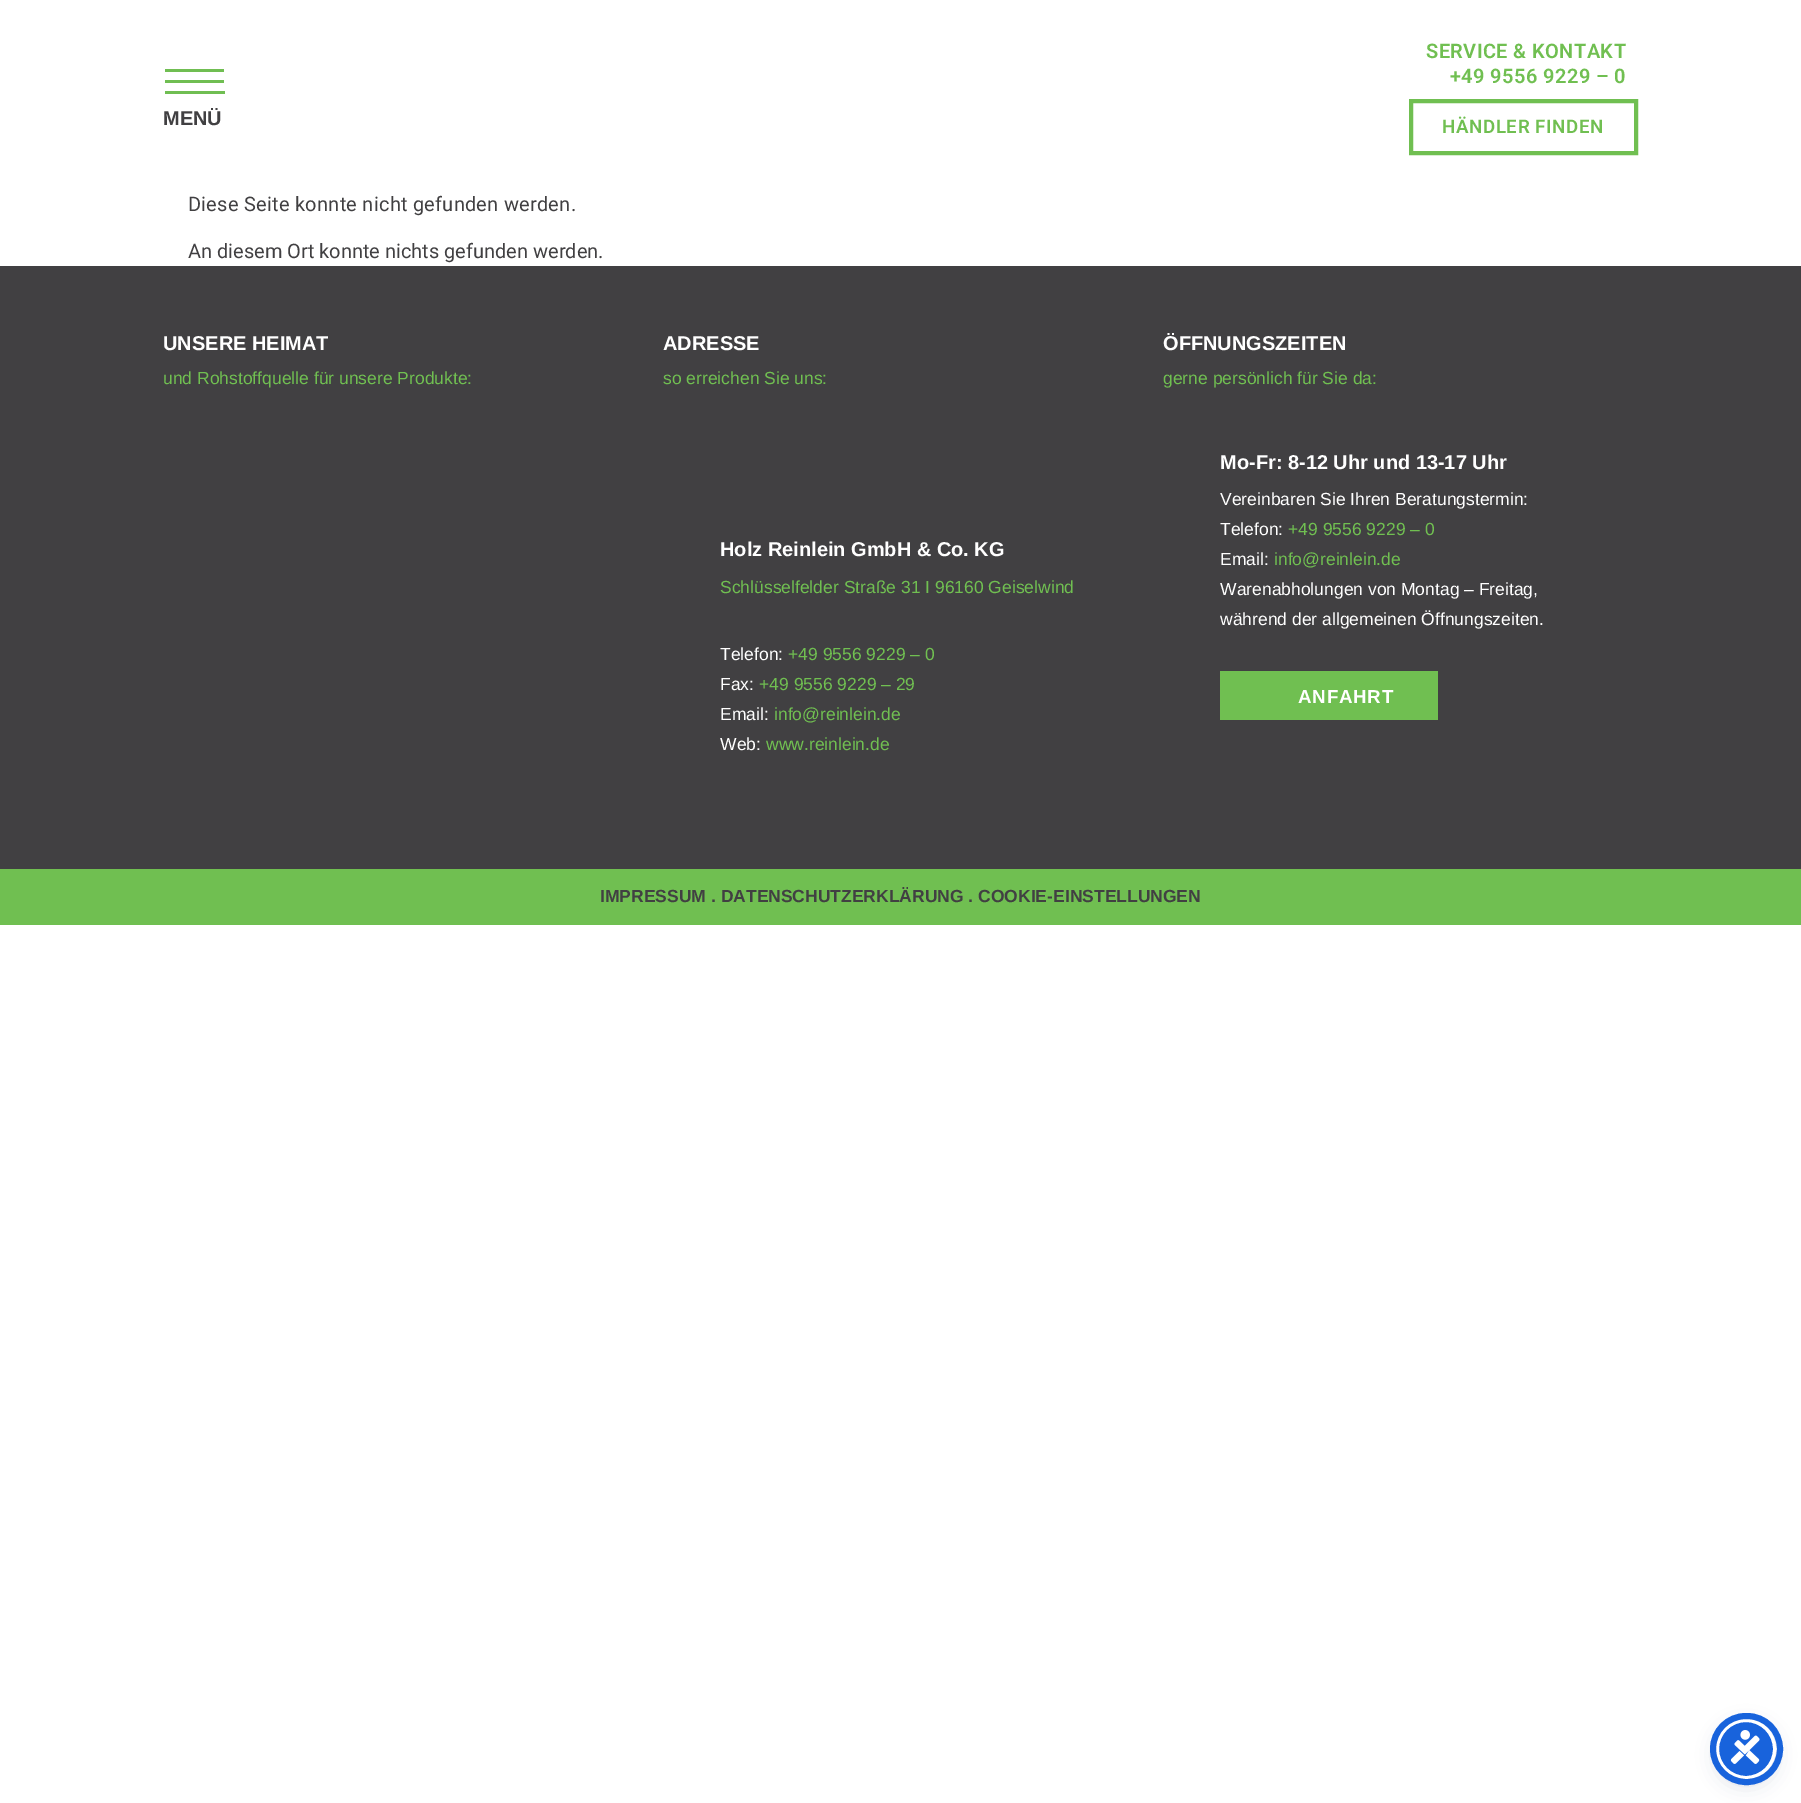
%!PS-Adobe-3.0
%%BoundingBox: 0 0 1801 1803
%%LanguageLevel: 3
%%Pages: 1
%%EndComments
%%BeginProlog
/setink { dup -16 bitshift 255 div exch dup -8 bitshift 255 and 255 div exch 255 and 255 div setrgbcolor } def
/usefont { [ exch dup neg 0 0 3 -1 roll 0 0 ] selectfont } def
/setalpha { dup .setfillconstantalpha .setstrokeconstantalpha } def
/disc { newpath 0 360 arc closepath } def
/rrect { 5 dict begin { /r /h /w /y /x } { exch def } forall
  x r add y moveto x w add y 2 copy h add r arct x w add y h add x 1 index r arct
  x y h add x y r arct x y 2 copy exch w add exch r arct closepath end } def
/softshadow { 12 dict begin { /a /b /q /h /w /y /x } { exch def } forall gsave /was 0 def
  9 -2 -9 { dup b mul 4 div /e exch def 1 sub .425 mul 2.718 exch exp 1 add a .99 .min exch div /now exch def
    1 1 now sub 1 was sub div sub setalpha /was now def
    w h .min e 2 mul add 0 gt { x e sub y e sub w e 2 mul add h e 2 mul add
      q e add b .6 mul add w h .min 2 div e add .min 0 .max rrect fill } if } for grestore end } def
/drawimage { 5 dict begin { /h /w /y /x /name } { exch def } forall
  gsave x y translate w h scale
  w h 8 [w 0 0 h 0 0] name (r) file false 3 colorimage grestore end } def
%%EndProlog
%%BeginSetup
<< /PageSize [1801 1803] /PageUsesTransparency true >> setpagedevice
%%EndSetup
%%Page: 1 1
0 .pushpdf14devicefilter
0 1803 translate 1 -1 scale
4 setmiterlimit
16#FFFFFF setink
0 0 1801 1803 rectfill
[
    [165 69 59 3 16#70BE52]
    [165 80 59 3 16#70BE52]
    [165 91 60 3 16#70BE52]
] { aload pop setink rectfill } forall
/LiberationSans-Bold 20 usefont
16#414042 setink
163 125 moveto (MENÜ) show
/Roboto-SemiBold 20 usefont
16#70BF51 setink
1426 58 moveto 0.4 0 (SERVICE & KONTAKT) ashow
1450 83 moveto 0.4 0 (+49 9556 9229 – 0) ashow
4 setlinewidth
1411 101 225 52 rectstroke
/Roboto-SemiBold 18.75 usefont
1442 133 moveto 0.6 0 (HÄNDLER FINDEN) ashow
/Roboto-Regular 20 usefont
16#414042 setink
188 211 moveto 0.25 0 (Diese Seite konnte nicht gefunden werden.) ashow
188 258 moveto (An diesem Ort konnte nichts gefunden werden.) show
0 266 1801 603 rectfill
/LiberationSans-Bold 20 usefont
16#FFFFFF setink
163 350 moveto (UNSERE HEIMAT) show
/LiberationSans-Regular 17.5 usefont
16#70BF51 setink
163 384 moveto (und Rohstoffquelle für unsere Produkte:) show
/LiberationSans-Bold 20 usefont
16#FFFFFF setink
663 350 moveto (ADRESSE) show
/LiberationSans-Regular 17.5 usefont
16#70BF51 setink
663 384 moveto (so erreichen Sie uns:) show
/LiberationSans-Bold 20 usefont
16#FFFFFF setink
720 556 moveto (Holz Reinlein GmbH & Co. KG) show
/LiberationSans-Regular 17.5 usefont
16#70BF51 setink
720 593 moveto (Schlüsselfelder Straße 31 I 96160 Geiselwind) show
16#FFFFFF setink
720 660 moveto (Telefon:) show
16#70BF51 setink
788 660 moveto (+49 9556 9229 – 0) show
16#FFFFFF setink
720 690 moveto (Fax:) show
16#70BF51 setink
759 690 moveto (+49 9556 9229 – 29) show
16#FFFFFF setink
720 720 moveto (Email:) show
16#70BF51 setink
774 720 moveto (info@reinlein.de) show
16#FFFFFF setink
720 750 moveto (Web:) show
16#70BF51 setink
766 750 moveto (www.reinlein.de) show
/LiberationSans-Bold 20 usefont
16#FFFFFF setink
1163 350 moveto (ÖFFNUNGSZEITEN) show
/LiberationSans-Regular 17.5 usefont
16#70BF51 setink
1163 384 moveto (gerne persönlich für Sie da:) show
/LiberationSans-Bold 20 usefont
16#FFFFFF setink
1220 469 moveto (Mo-Fr: 8-12 Uhr und 13-17 Uhr) show
/LiberationSans-Regular 17.5 usefont
1220 505 moveto (Vereinbaren Sie Ihren Beratungstermin:) show
1220 535 moveto (Telefon:) show
16#70BF51 setink
1288 535 moveto (+49 9556 9229 – 0) show
16#FFFFFF setink
1220 565 moveto (Email:) show
16#70BF51 setink
1274 565 moveto (info@reinlein.de) show
16#FFFFFF setink
1220 595 moveto (Warenabholungen von Montag – Freitag,) show
1220 625 moveto (während der allgemeinen Öffnungszeiten.) show
16#70BF51 setink
1220 671 218 49 rectfill
/LiberationSans-Bold 18.75 usefont
16#FFFFFF setink
1298 703 moveto 0.75 0 (ANFAHRT) ashow
16#70BF51 setink
0 869 1801 56 rectfill
/LiberationSans-Bold 17.5 usefont
16#414042 setink
600 902 moveto (IMPRESSUM . DATENSCHUTZERKLÄRUNG . COOKIE-EINSTELLUNGEN) show
16#5D6494 setink
1716 1721 60 60 30 2.5 0.2 softshadow
16#252C61 setink
1716 1725 60 60 30 9.5 0.15 softshadow
16#1863DC setink
1746 1749 28.5 disc gsave fill grestore
16#FFFFFF setink
3 setlinewidth
stroke
16#1863DC setink
6 setlinewidth
1713 1716 67 66 33 rrect stroke
(img1.raw) 1730 1730 30 34 drawimage
.poppdf14devicefilter showpage
%%EOF
